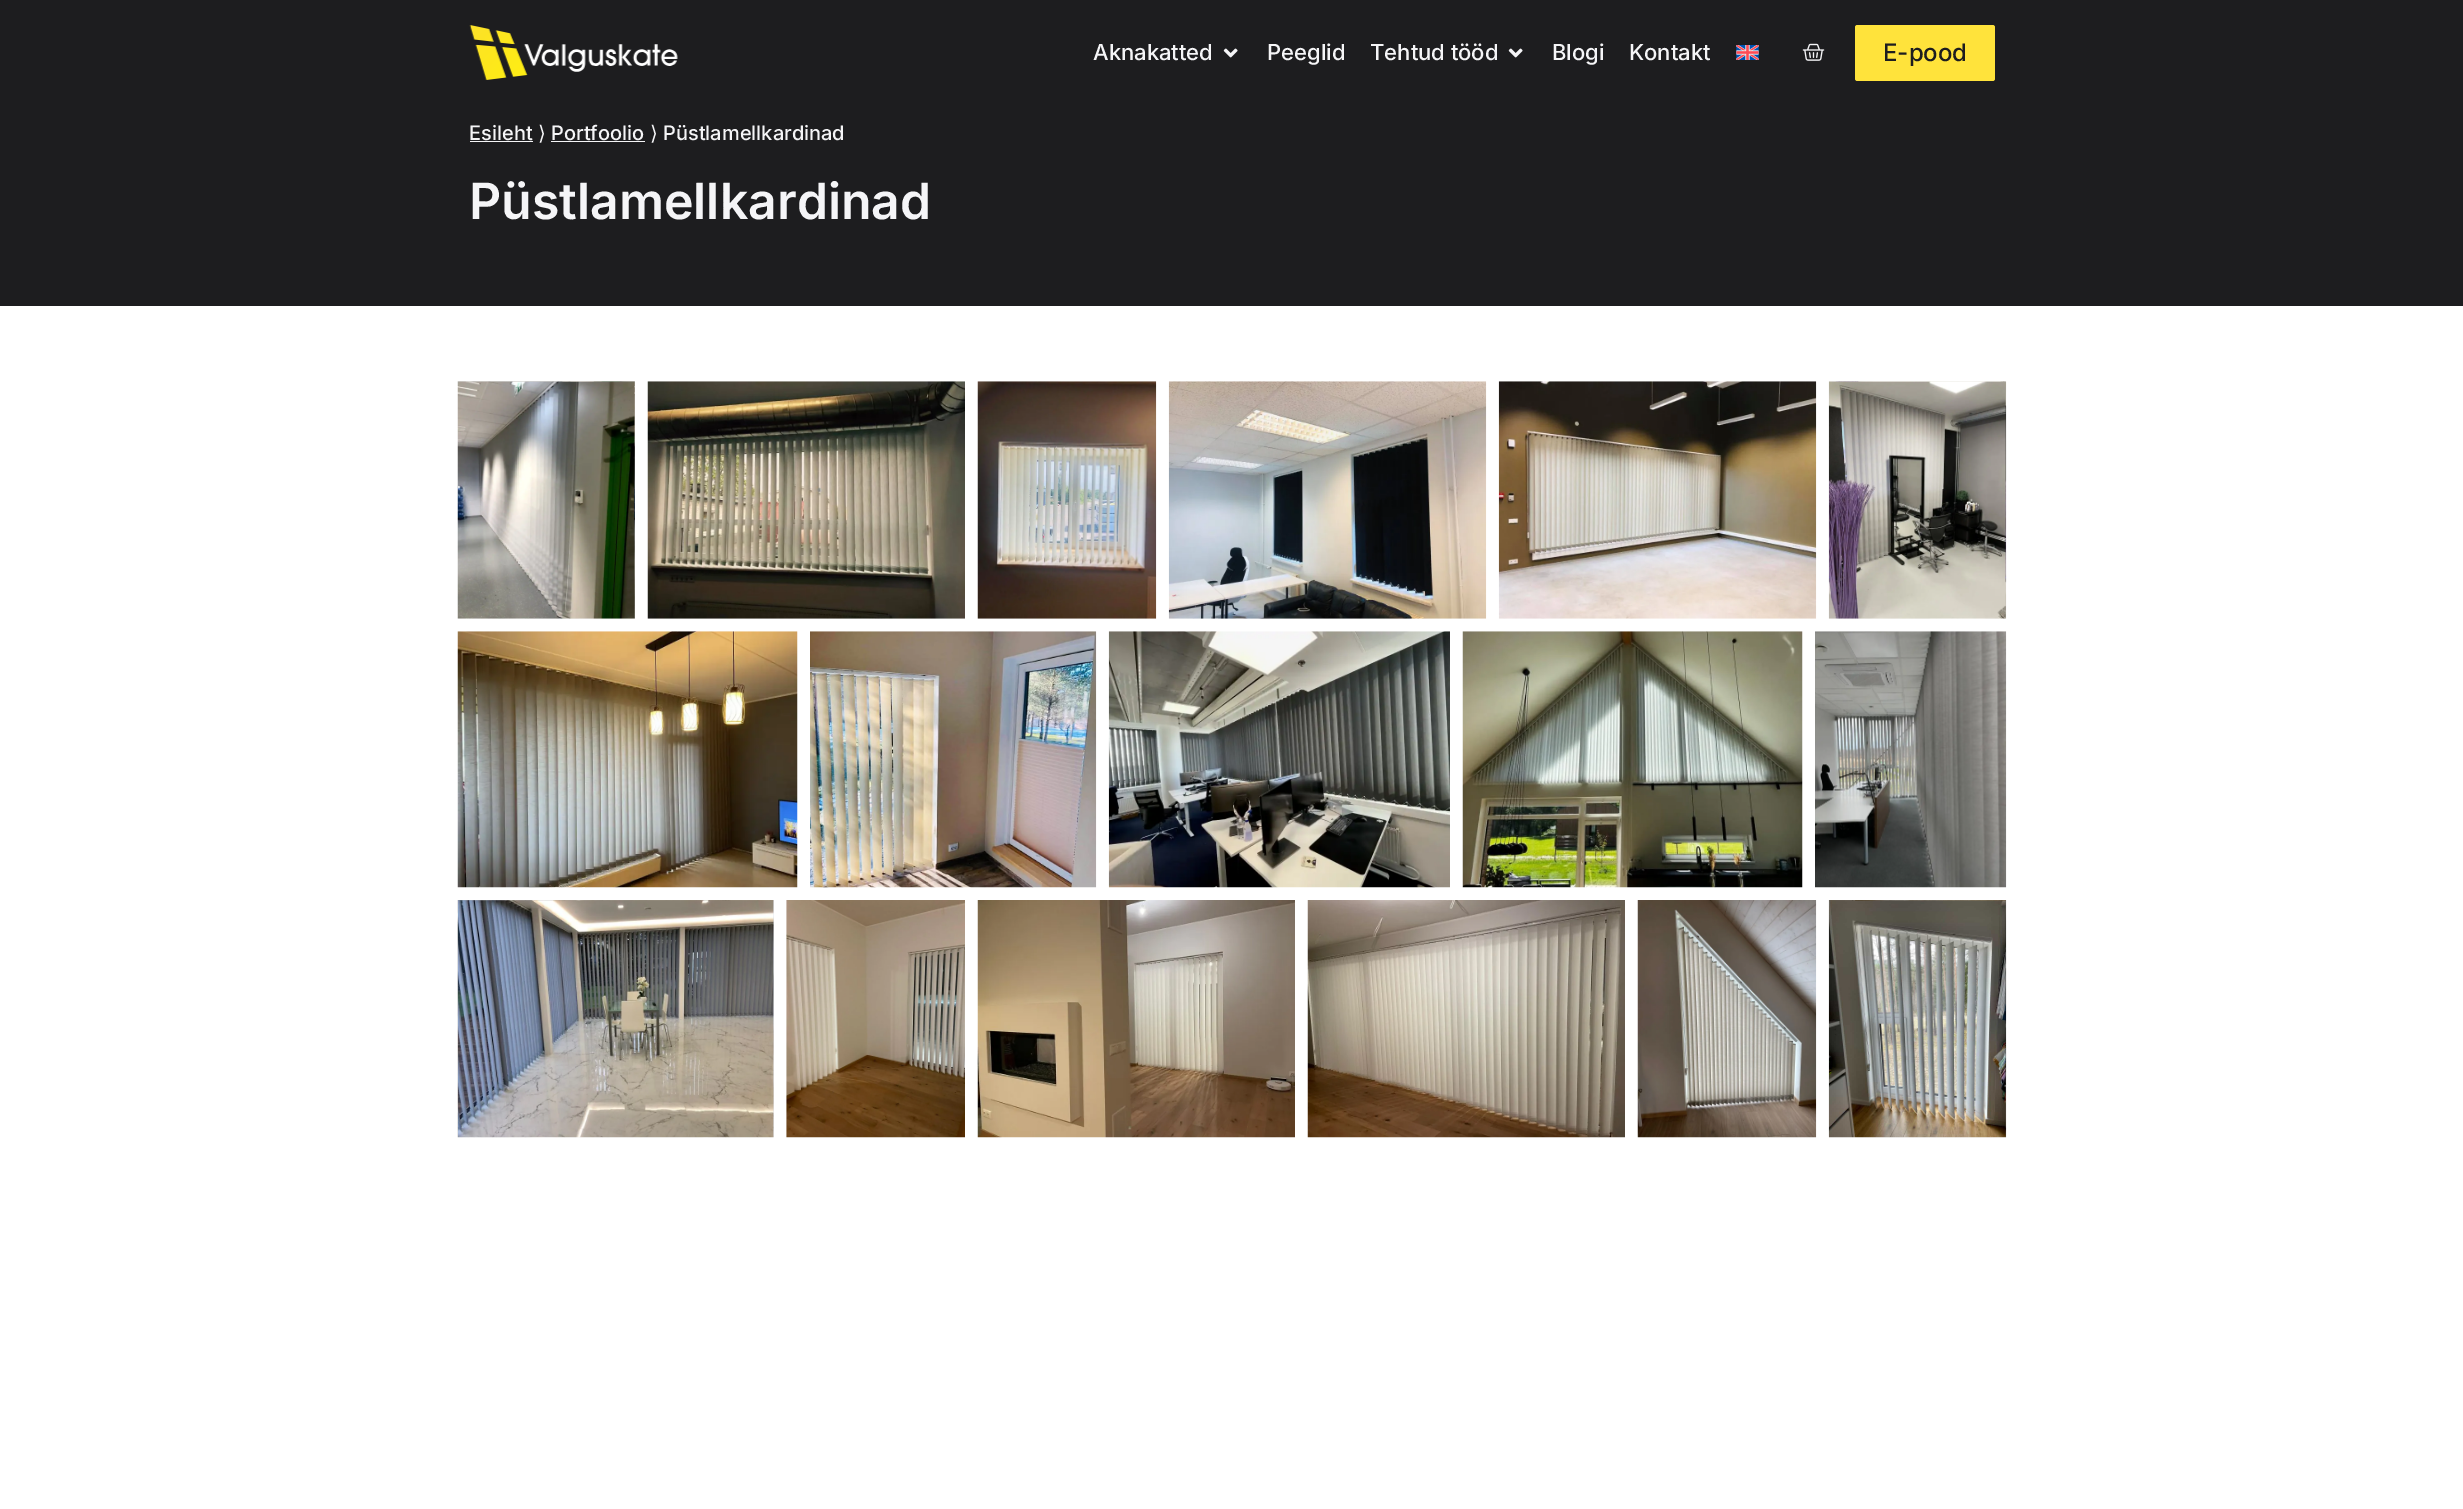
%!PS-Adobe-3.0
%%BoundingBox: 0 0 2463 1509
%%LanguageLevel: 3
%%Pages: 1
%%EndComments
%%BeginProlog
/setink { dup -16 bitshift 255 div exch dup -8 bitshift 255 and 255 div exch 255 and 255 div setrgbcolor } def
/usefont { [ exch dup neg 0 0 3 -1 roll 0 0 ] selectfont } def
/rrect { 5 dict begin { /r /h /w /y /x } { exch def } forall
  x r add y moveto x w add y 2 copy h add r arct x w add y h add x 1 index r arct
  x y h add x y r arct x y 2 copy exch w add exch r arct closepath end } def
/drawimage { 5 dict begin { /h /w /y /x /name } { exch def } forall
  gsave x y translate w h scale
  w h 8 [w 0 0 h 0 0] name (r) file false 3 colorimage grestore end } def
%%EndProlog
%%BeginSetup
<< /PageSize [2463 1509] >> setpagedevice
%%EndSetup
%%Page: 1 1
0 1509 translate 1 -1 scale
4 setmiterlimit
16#FFFFFF setink
0 0 2463 1509 rectfill
16#1D1D1F setink
0 0 2463 306 rectfill
(img1.raw) 469 25 209 55 drawimage
/Inter-Medium 22 usefont
16#F5F5F7 setink
1093 60 moveto (Aknakatted) show
(img2.raw) 1223 48 15 10 drawimage
1267 60 moveto (Peeglid) show
1370 60 moveto (Tehtud tööd) show
(img2.raw) 1508 48 15 10 drawimage
1552 60 moveto (Blogi) show
1629 60 moveto (Kontakt) show
(img3.raw) 1736 45 23 15 drawimage
(img4.raw) 1802 43 23 18 drawimage
16#FFE33B setink
1855 25 140 56 2.5 rrect fill
/Inter-Medium 24 usefont
16#1D1D1F setink
1883 61 moveto (E-pood) show
/Inter-Medium 20 usefont
16#F5F5F7 setink
469 140 moveto (Esileht) show
470 141 63 1 rectfill
/DejaVuSans-Regular 20 usefont
538 140 moveto (⟩) show
/Inter-Medium 20 usefont
551 140 moveto (Portfoolio) show
551 141 94 1 rectfill
/DejaVuSans-Regular 20 usefont
650 140 moveto (⟩) show
/Inter-Medium 20 usefont
663 140 moveto (Püstlamellkardinad) show
/Inter-SemiBold 50 usefont
469 219 moveto (Püstlamellkardinad) show
(img5.raw) 457 381 178 238 drawimage
(img6.raw) 647 381 318 238 drawimage
(img7.raw) 977 381 180 238 drawimage
(img8.raw) 1168 381 319 238 drawimage
(img9.raw) 1498 381 319 238 drawimage
(img10.raw) 1828 381 179 238 drawimage
(img11.raw) 457 631 341 257 drawimage
(img12.raw) 810 631 287 257 drawimage
(img13.raw) 1108 631 342 257 drawimage
(img14.raw) 1462 631 341 257 drawimage
(img15.raw) 1815 631 192 257 drawimage
(img16.raw) 457 900 317 238 drawimage
(img17.raw) 786 900 179 238 drawimage
(img18.raw) 977 900 318 238 drawimage
(img19.raw) 1307 900 318 238 drawimage
(img20.raw) 1637 900 180 238 drawimage
(img21.raw) 1828 900 179 238 drawimage
showpage
%%EOF
